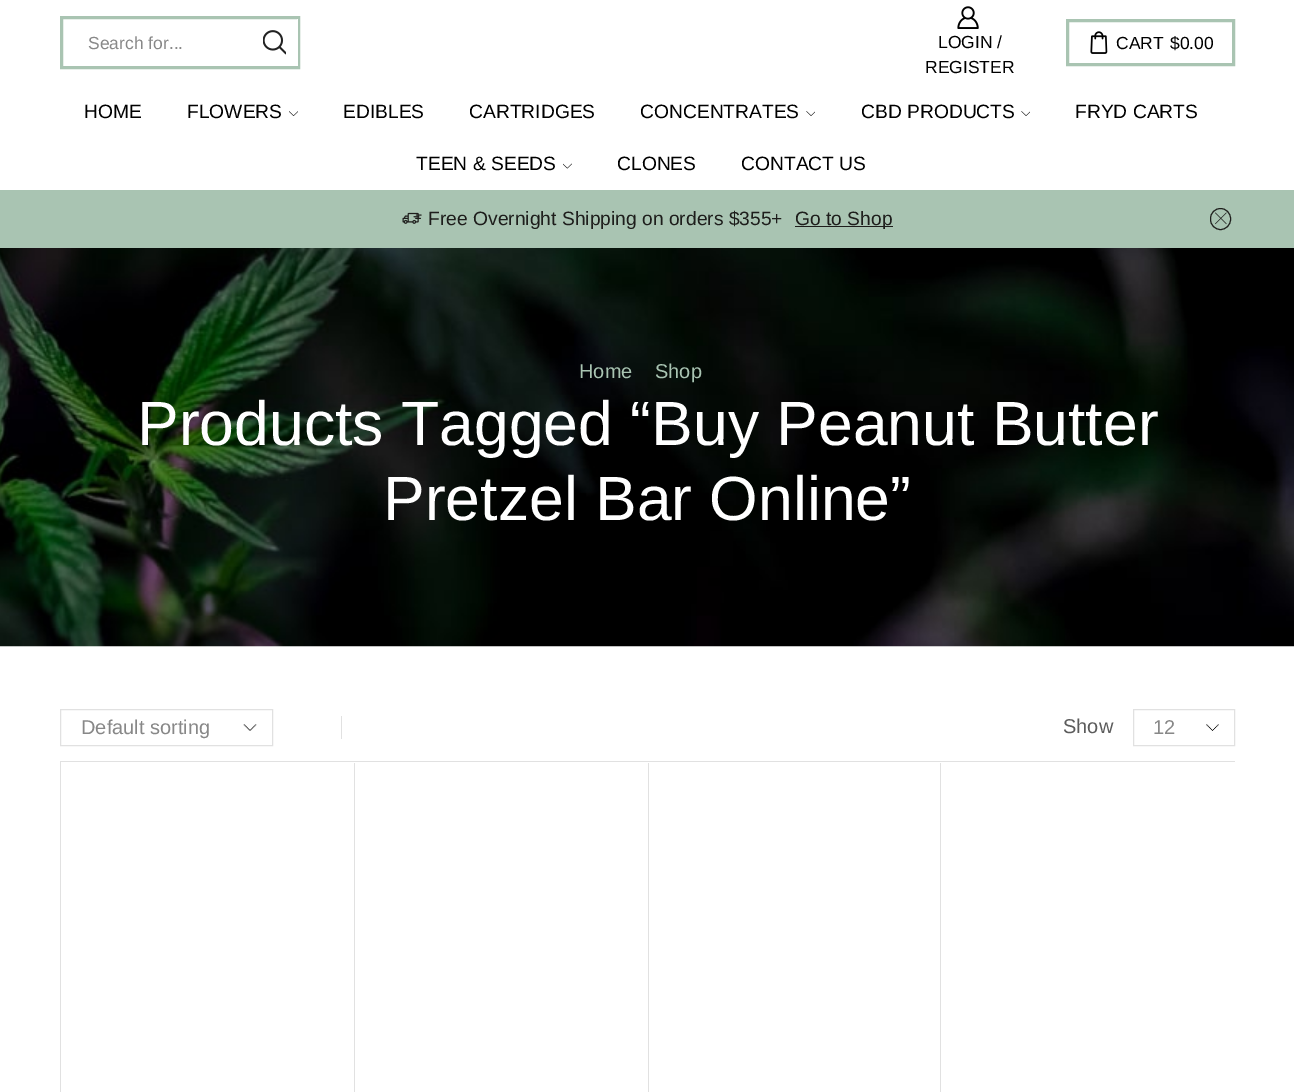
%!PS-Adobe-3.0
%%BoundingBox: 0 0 1294 1092
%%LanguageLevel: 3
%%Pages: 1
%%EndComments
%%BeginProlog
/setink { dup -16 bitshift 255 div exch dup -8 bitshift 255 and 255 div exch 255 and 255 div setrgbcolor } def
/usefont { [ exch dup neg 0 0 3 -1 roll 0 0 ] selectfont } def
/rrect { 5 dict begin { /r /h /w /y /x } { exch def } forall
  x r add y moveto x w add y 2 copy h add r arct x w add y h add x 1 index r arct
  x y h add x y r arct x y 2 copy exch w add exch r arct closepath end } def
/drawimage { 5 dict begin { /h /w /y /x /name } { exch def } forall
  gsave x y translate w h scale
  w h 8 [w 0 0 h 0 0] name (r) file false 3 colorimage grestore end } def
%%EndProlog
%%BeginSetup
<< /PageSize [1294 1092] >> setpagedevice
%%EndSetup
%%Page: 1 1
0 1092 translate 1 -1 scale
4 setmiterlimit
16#FFFFFF setink
0 0 1294 1092 rectfill
16#A9C4B2 setink
3 setlinewidth
61.5 17.5 237 50 rectstroke
/LiberationSans-Regular 17.5 usefont
16#888888 setink
88 49 moveto (Search for...) show
16#FFFFFF setink
297 19 1 47 rectfill
(img1.raw) 263 30 23 25 drawimage
(img2.raw) 957 6 22 23 drawimage
16#000000 setink
938 48 moveto (LOGIN /) show
925 73 moveto (REGISTER) show
16#A9C4B2 setink
1067.5 20.5 166 44 rectstroke
(img3.raw) 1090 31 18 23 drawimage
16#000000 setink
1116 49 moveto (CART) show
1170 49 moveto ($0.00) show
/LiberationSans-Regular 19.25 usefont
84 118 moveto (HOME) show
187 118 moveto (FLOWERS) show
(img4.raw) 289 111 9 5 drawimage
[
    [(EDIBLES) 343 118]
    [(CARTRIDGES) 469 118]
    [(CONCENTRATES) 640 118]
] { aload pop moveto show } forall
(img5.raw) 806 111 9 5 drawimage
861 118 moveto (CBD PRODUCTS) show
(img5.raw) 1021 111 9 5 drawimage
1075 118 moveto (FRYD CARTS) show
416 170 moveto (TEEN & SEEDS) show
(img6.raw) 563 163 9 6 drawimage
617 170 moveto (CLONES) show
741 170 moveto (CONTACT US) show
16#A9C4B2 setink
0 190 1294 58 rectfill
(img7.raw) 402 212 20 12 drawimage
16#1E1E1C setink
428 225 moveto (Free Overnight Shipping on orders $355+) show
795 226 98 1 rectfill
795 225 moveto (Go to Shop) show
1 setlinewidth
1210.5 208.5 20 21 10 rrect stroke
(img8.raw) 1215 212 12 13 drawimage
(img9.raw) 0 248 1294 399 drawimage
/LiberationSans-Regular 20 usefont
16#A9C4B2 setink
579 378 moveto (Home) show
655 378 moveto (Shop) show
/LiberationSans-Regular 62.5 usefont
16#FFFFFF setink
137 445 moveto (Products Tagged “Buy Peanut Butter) show
383 520 moveto (Pretzel Bar Online”) show
(img10.raw) 243 724 14 7 drawimage
16#E1E1E1 setink
60.5 709.5 212 36 rectstroke
/LiberationSans-Regular 20 usefont
16#888888 setink
81 734 moveto (Default sorting) show
16#E1E1E1 setink
341 716 1 23 rectfill
16#5C5C5C setink
1063 733 moveto (Show) show
(img11.raw) 1206 724 13 7 drawimage
16#E1E1E1 setink
1133.5 709.5 101 36 rectstroke
16#888888 setink
1153 734 moveto (12) show
[
    [60 761 1175 1 16#E1E1E1]
    [60 761 1 331 16#E1E1E1]
    [354 763 1 329 16#E1E1E1]
    [648 763 1 329 16#E1E1E1]
    [940 763 1 329 16#E1E1E1]
] { aload pop setink rectfill } forall
showpage
%%EOF
